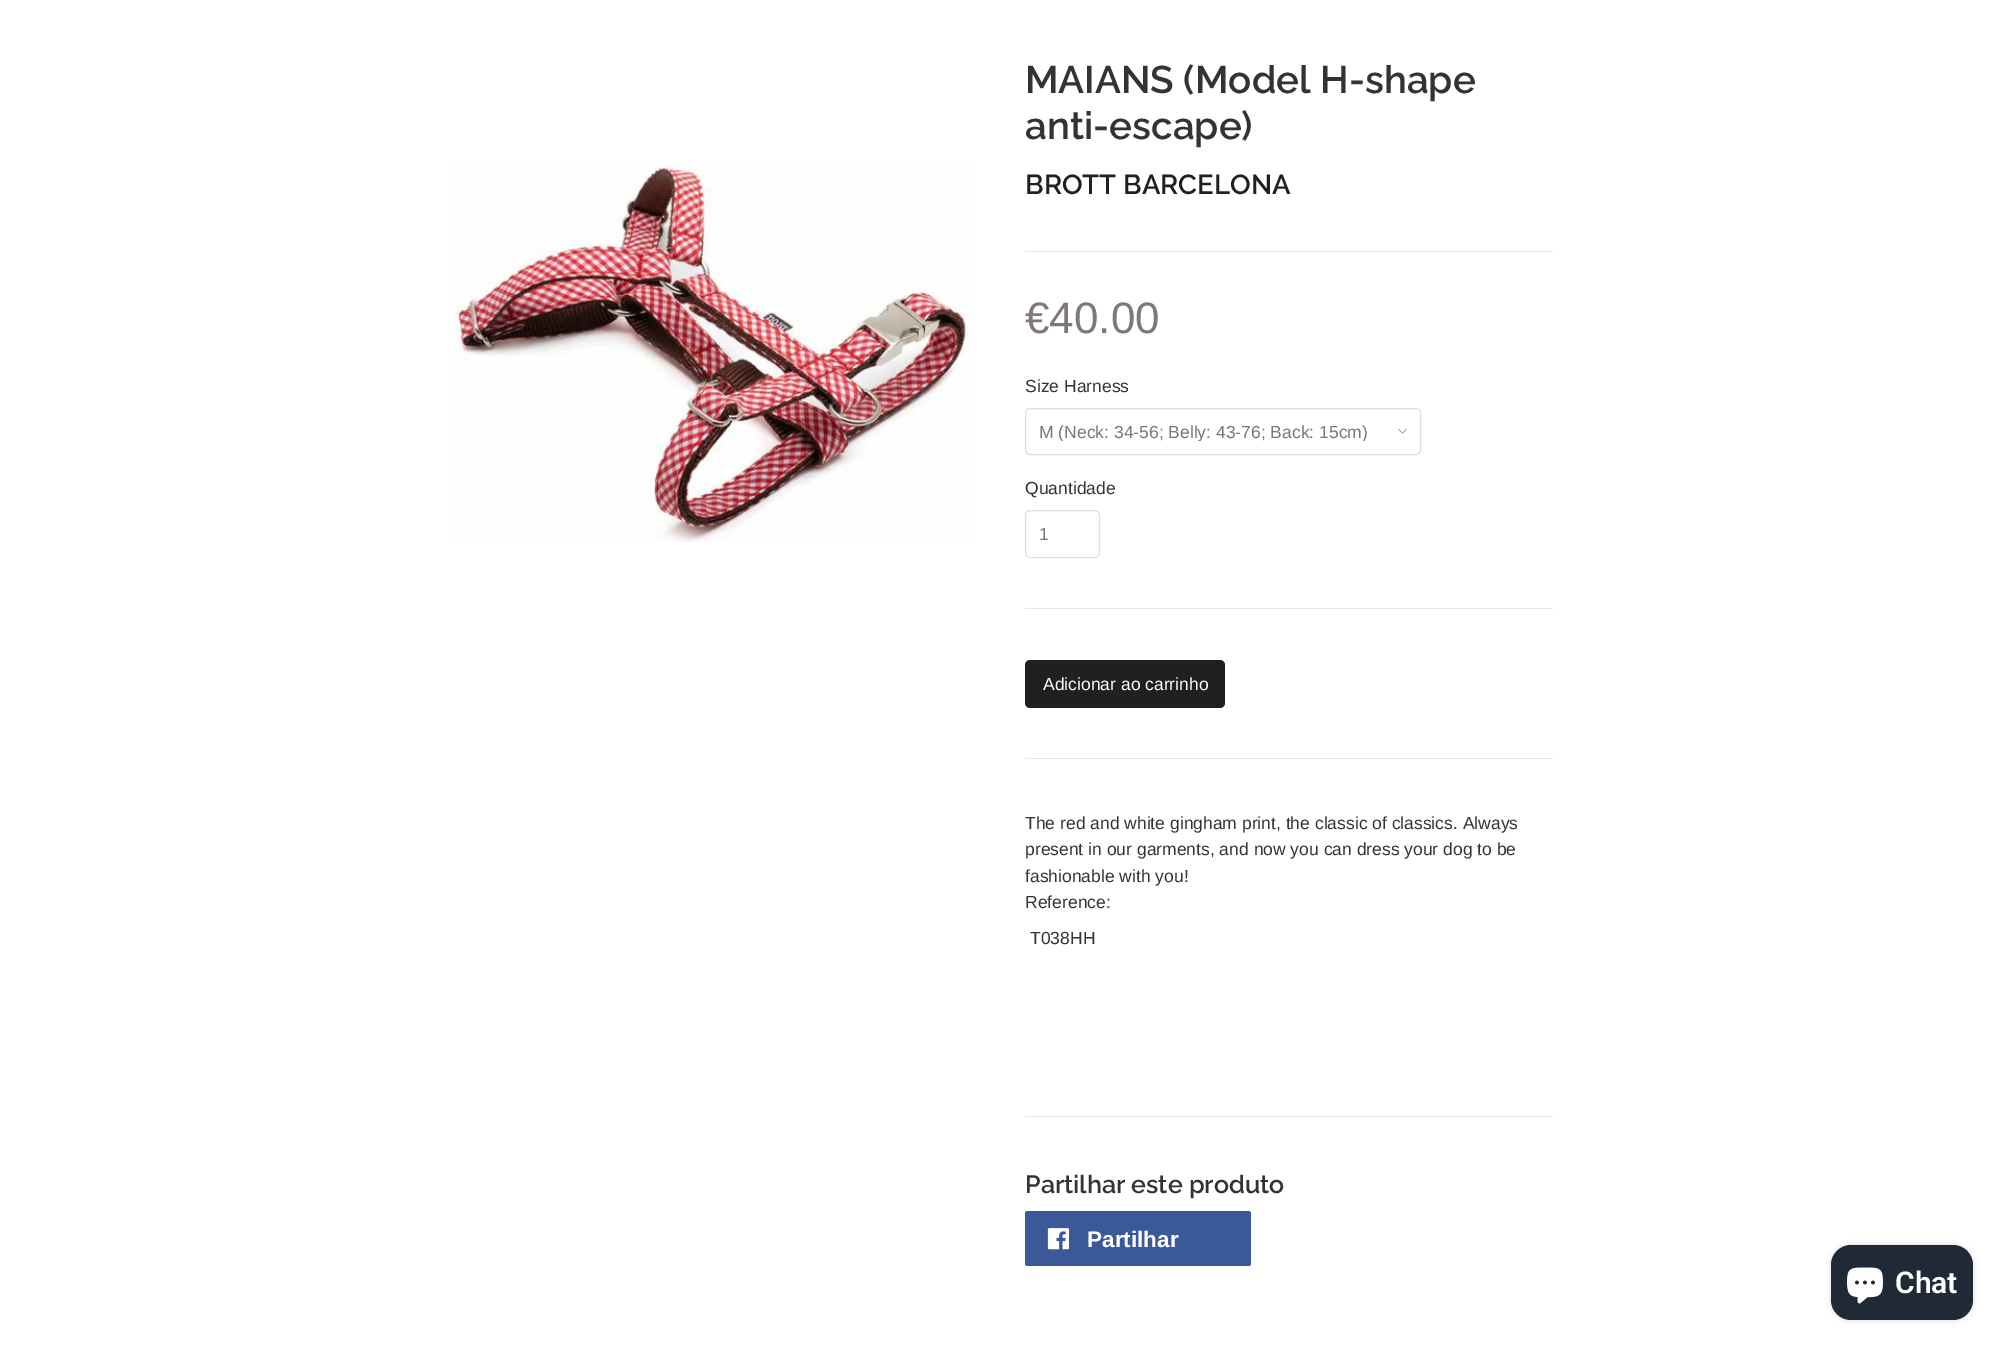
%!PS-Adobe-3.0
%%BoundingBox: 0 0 2000 1346
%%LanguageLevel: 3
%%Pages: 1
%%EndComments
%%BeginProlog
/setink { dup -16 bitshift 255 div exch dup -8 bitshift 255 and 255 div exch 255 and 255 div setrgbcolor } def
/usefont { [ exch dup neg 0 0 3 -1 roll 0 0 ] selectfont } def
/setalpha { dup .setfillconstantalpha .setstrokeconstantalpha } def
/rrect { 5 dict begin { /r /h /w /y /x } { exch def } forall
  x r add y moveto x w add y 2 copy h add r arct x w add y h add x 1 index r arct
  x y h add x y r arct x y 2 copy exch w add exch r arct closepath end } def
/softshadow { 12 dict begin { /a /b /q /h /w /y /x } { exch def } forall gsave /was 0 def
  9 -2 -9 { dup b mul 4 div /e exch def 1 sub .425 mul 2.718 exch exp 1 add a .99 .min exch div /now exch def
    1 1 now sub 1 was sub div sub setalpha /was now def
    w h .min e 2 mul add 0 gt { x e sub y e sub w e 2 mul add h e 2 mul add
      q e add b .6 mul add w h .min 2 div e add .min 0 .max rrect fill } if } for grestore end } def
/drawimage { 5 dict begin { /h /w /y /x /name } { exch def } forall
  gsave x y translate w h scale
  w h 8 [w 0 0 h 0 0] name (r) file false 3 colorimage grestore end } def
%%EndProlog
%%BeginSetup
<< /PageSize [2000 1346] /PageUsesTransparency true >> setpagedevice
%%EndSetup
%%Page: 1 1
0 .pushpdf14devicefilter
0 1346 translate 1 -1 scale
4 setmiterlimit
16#FFFFFF setink
0 0 2000 1346 rectfill
(img1.raw) 448 165 525 378 drawimage
/Raleway-Thin 38.5 usefont
16#333333 setink
1025 93 moveto (MAIANS \(Model H-shape) show
1025 139 moveto (anti-escape\)) show
/Raleway-Thin 27.5 usefont
16#211F1F setink
1025 194 moveto (BROTT BARCELONA) show
16#E8E8E8 setink
1025 251 528 1 rectfill
/LiberationSans-Regular 44 usefont
16#807777 setink
1025 333 moveto (€40.00) show
/LiberationSans-Regular 17.5 usefont
16#333333 setink
1025 392 moveto (Size Harness) show
(img2.raw) 1398 429 9 5 drawimage
16#DEDEDE setink
1025.5 408.5 395 46 4.5 rrect stroke
gsave
1039 421 346 20 rectclip
16#777777 setink
1039 438 moveto (M \(Neck: 34-56; Belly: 43-76; Back: 15cm\)) show
grestore
16#333333 setink
1025 494 moveto (Quantidade) show
16#DEDEDE setink
1025.5 510.5 74 47 4.5 rrect stroke
16#777777 setink
1039 540 moveto (1) show
16#E8E8E8 setink
1025 608 528 1 rectfill
16#211F1F setink
1025 660 200 48 5 rrect fill
16#FFFFFF setink
1043 690 moveto (Adicionar ao carrinho) show
16#E8E8E8 setink
1025 758 528 1 rectfill
16#333333 setink
[
    [(The red and white gingham print, the classic of classics. Always) 1025 829]
    [(present in our garments, and now you can dress your dog to be) 1025 855]
    [(fashionable with you!) 1025 882]
    [(Reference:) 1025 908]
    [(T038HH) 1030 944]
] { aload pop moveto show } forall
16#E8E8E8 setink
1025 1116 528 1 rectfill
/Raleway-Thin 25 usefont
16#333333 setink
1025 1193 moveto (Partilhar este produto) show
16#3B5998 setink
1025 1211 226 55 2.5 rrect fill
(img3.raw) 1047 1228 22 22 drawimage
/LiberationSans-Bold 22.5 usefont
16#FFFFFF setink
1087 1247 moveto (Partilhar) show
16#000000 setink
1831 1245 142 75 20 3 0.15 softshadow
16#202A36 setink
1831 1245 142 75 20 rrect fill
(img4.raw) 1847 1267 36 37 drawimage
/Roboto-SemiBold 30 usefont
16#FFFFFF setink
1895 1293 moveto (Chat) show
.poppdf14devicefilter showpage
%%EOF
